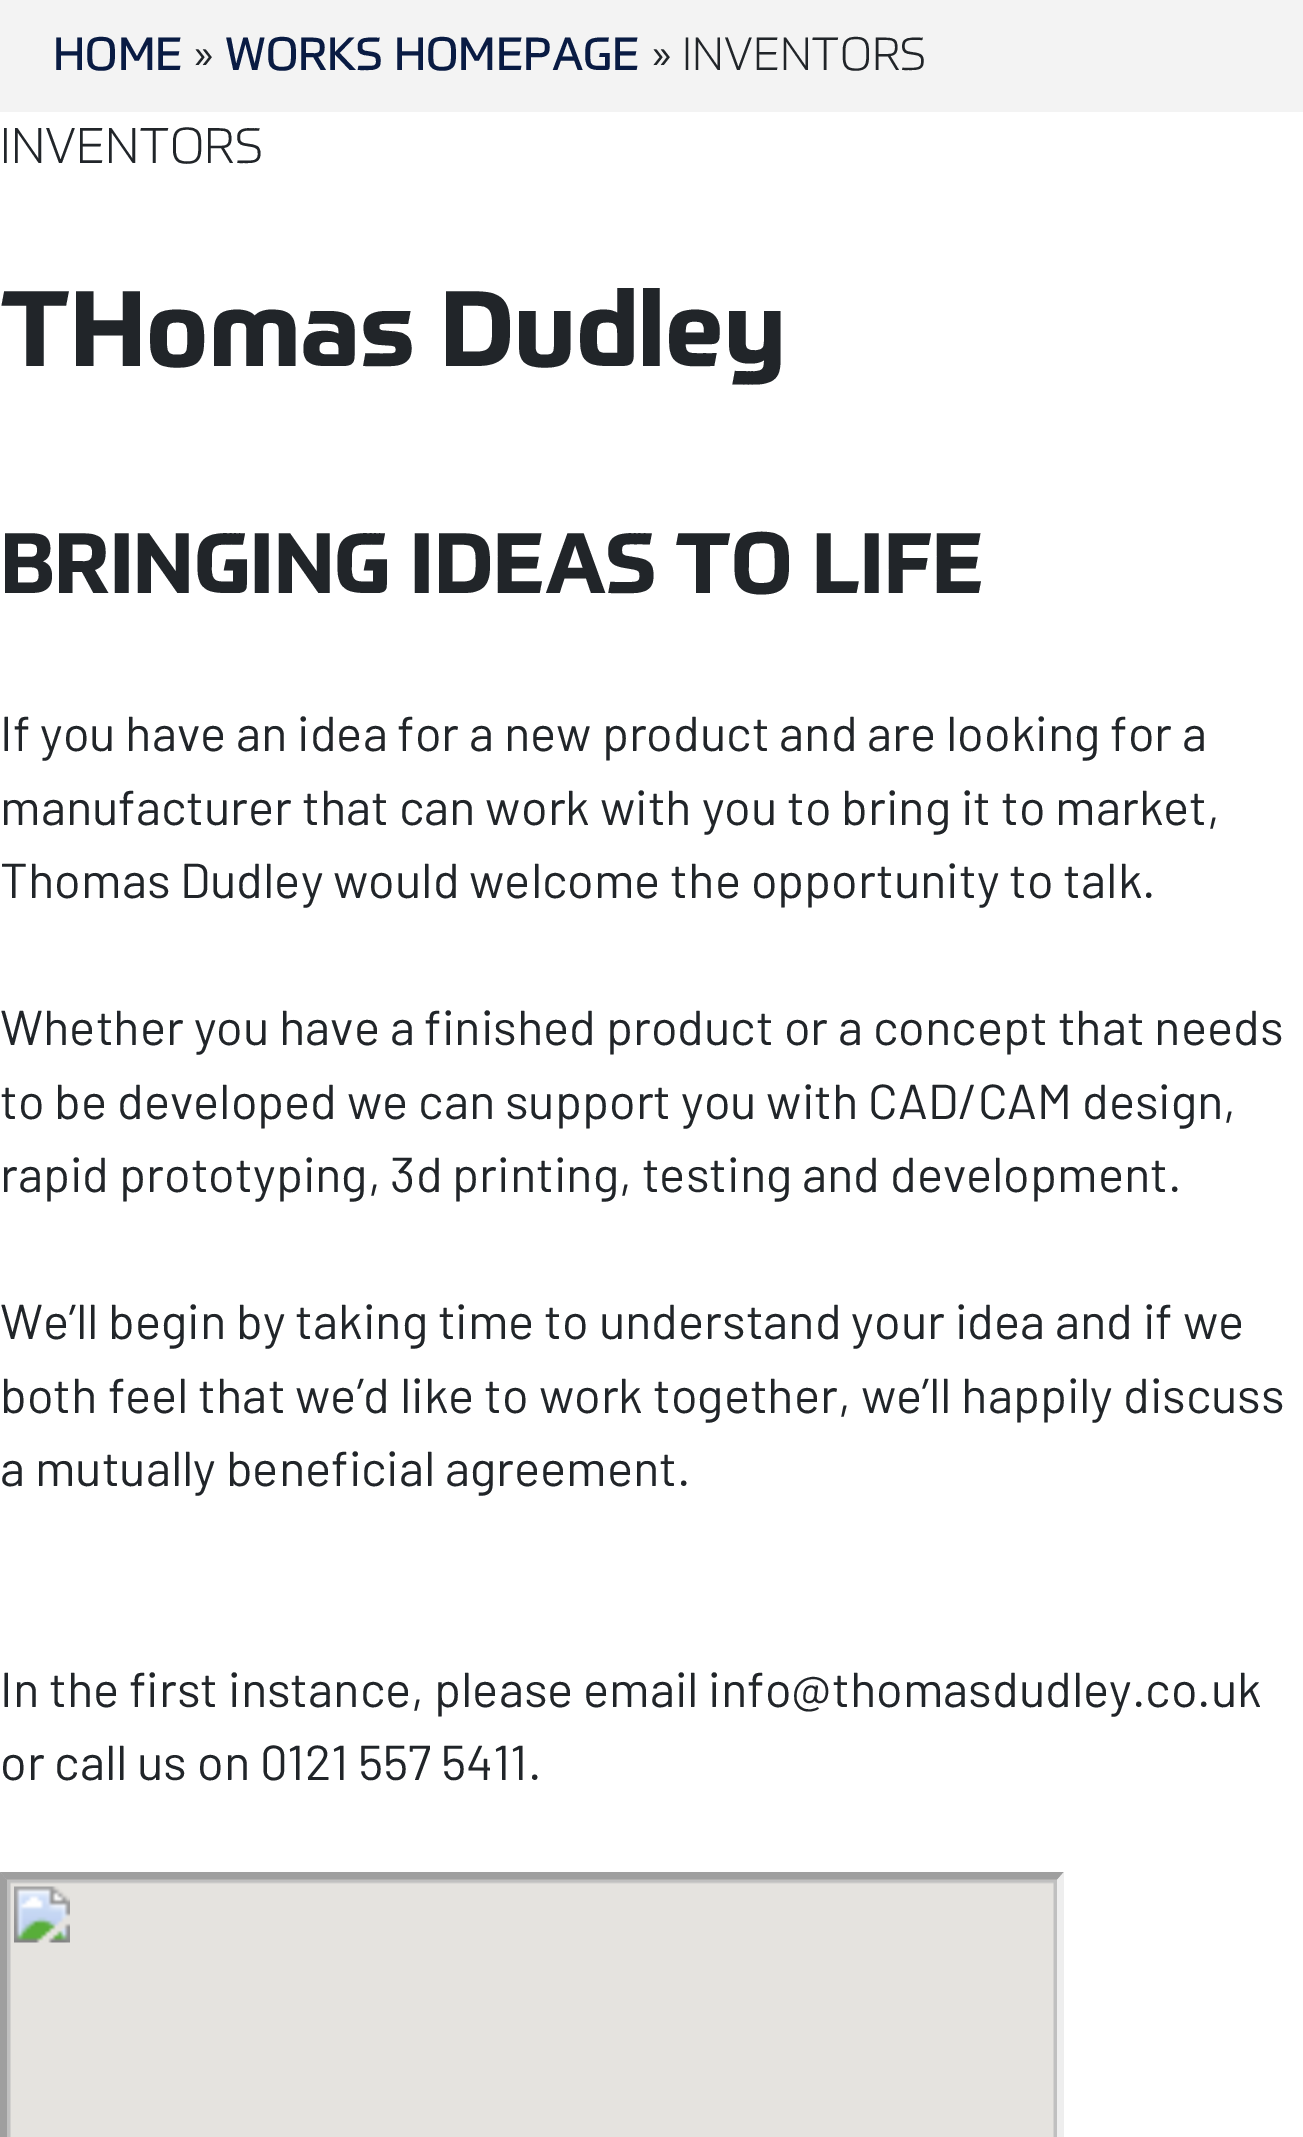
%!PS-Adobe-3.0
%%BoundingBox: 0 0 1303 2137
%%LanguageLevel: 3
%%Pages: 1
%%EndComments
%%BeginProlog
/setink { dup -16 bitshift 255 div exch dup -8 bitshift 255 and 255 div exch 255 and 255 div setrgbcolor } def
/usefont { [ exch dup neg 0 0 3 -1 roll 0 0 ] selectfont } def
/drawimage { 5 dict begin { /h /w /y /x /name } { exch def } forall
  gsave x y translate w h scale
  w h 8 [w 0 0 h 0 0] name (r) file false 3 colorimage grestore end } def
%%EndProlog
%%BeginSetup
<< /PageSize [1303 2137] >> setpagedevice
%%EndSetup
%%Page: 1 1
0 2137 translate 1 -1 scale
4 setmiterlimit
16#FFFFFF setink
0 0 1303 2137 rectfill
16#F3F3F3 setink
0 0 1303 112 rectfill
/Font-Regular 45.5 usefont
16#091B43 setink
53 70 moveto (HOME) show
/Barlow-Regular 45.5 usefont
16#212529 setink
191 70 moveto (») show
/Font-Regular 45.5 usefont
16#091B43 setink
225 70 moveto (WORKS HOMEPAGE) show
/Barlow-Regular 45.5 usefont
16#212529 setink
649 70 moveto (») show
/Font-Light 45.5 usefont
682 70 moveto (INVENTORS) show
/Font-Light 49 usefont
0 163 moveto (INVENTORS) show
/Font-Bold 105 usefont
0 366 moveto (THomas Dudley) show
/Font-Bold 84 usefont
0 593 moveto (BRINGING IDEAS TO LIFE) show
/Barlow-Regular 49 usefont
[
    [(If you have an idea for a new product and are looking for a) 0 751]
    [(manufacturer that can work with you to bring it to market,) 0 825]
    [(Thomas Dudley would welcome the opportunity to talk.) 0 898]
    [(Whether you have a finished product or a concept that needs) 0 1045]
    [(to be developed we can support you with CAD/CAM design,) 0 1119]
    [(rapid prototyping, 3d printing, testing and development.) 0 1192]
    [(We’ll begin by taking time to understand your idea and if we) 0 1339]
    [(both feel that we’d like to work together, we’ll happily discuss) 0 1413]
    [(a mutually beneficial agreement.) 0 1486]
    [(In the first instance, please email info@thomasdudley.co.uk) 0 1707]
    [(or call us on 0121 557 5411.) 0 1780]
] { aload pop moveto show } forall
16#9F9F9F setink
0 1872 moveto 1064 1872 lineto 1057 1880 lineto 7 1880 lineto closepath fill
0 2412 moveto 0 1872 lineto 7 1880 lineto 7 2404 lineto closepath fill
(img1.raw) 7 1879 1050 258 drawimage
16#EEEEEE setink
1064 1872 moveto 1064 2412 lineto 1057 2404 lineto 1057 1880 lineto closepath fill
showpage
%%EOF
